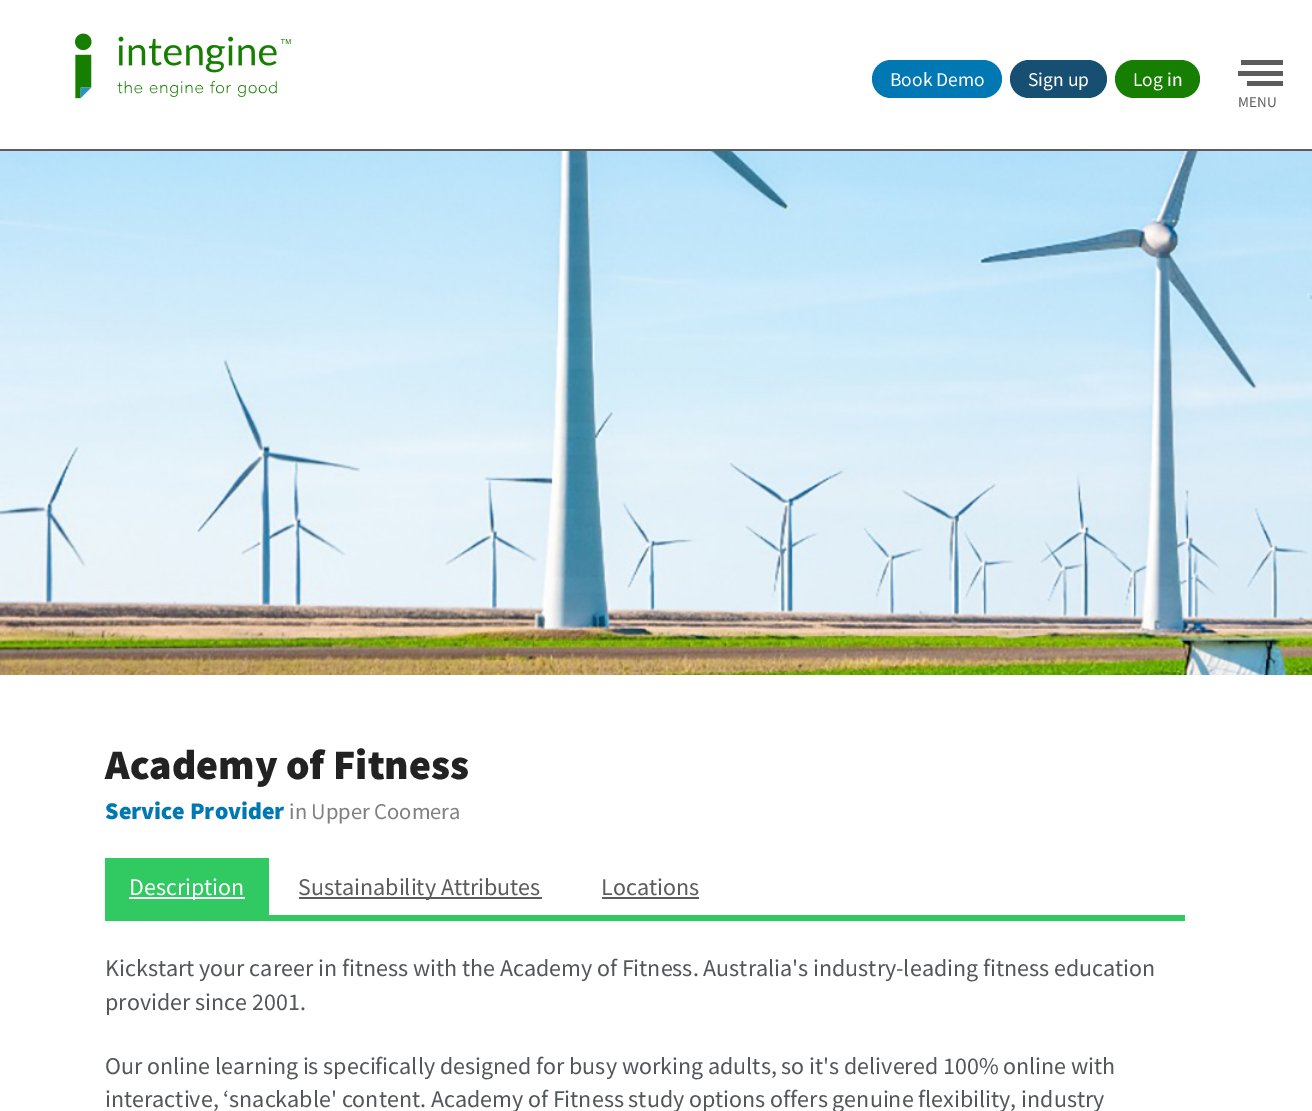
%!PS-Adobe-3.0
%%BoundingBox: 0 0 1312 1111
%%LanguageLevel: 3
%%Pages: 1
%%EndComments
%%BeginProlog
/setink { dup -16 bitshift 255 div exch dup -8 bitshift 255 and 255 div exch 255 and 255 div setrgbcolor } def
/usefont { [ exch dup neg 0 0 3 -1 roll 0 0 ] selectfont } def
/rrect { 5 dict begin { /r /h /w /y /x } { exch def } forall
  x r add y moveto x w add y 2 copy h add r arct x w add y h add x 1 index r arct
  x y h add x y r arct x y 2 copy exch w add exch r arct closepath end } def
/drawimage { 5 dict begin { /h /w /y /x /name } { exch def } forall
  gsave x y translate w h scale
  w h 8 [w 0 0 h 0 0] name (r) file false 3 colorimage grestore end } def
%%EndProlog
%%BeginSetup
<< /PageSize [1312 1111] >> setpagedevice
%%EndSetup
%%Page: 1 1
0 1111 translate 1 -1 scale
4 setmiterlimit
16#FFFFFF setink
0 0 1312 1111 rectfill
16#5C5C5C setink
0 149 1312 2 rectfill
(img1.raw) 75 33 216 66 drawimage
16#0078B4 setink
872 60 130 38 19 rrect fill
/SourceSansPro-Regular 19.5 usefont
16#FFFFFF setink
890 86 moveto (Book Demo) show
16#174F73 setink
1010 60 97 38 19 rrect fill
16#FFFFFF setink
1028 86 moveto (Sign up) show
16#167E00 setink
1115 60 85 38 19 rrect fill
16#FFFFFF setink
1133 86 moveto (Log in) show
[
    [1241 60 42 5 16#5C5C5C]
    [1238 71 45 5 16#5C5C5C]
    [1247 81 36 5 16#5C5C5C]
] { aload pop setink rectfill } forall
/SourceSansPro-Regular 15 usefont
1238 107 moveto (MENU) show
(img2.raw) 0 151 1312 524 drawimage
/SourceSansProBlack-Black 42 usefont
16#222222 setink
105 779 moveto (Academy of Fitness) show
/SourceSansProBlack-Black 24 usefont
16#0078B4 setink
105 819 moveto (Service Provider) show
/SourceSansPro-Regular 22.5 usefont
16#808080 setink
289 819 moveto (in Upper Coomera) show
[
    [105 915 1080 6 16#31C961]
    [105 858 164 57 16#31C961]
    [129 897 116 2 16#FFFFFF]
] { aload pop setink rectfill } forall
/SourceSansPro-Regular 24 usefont
129 895 moveto (Description) show
16#5C5C5C setink
299 897 243 2 rectfill
298 895 moveto (Sustainability Attributes) show
601 895 moveto (Locations) show
602 897 97 2 rectfill
16#53575A setink
[
    [(Kickstart your career in fitness with the Academy of Fitness. Australia's industry-leading fitness education) 105 976]
    [(provider since 2001.) 105 1010]
    [(Our online learning is specifically designed for busy working adults, so it's delivered 100% online with) 105 1074]
    [(interactive, ‘snackable' content. Academy of Fitness study options offers genuine flexibility, industry) 105 1107]
] { aload pop moveto show } forall
showpage
%%EOF
